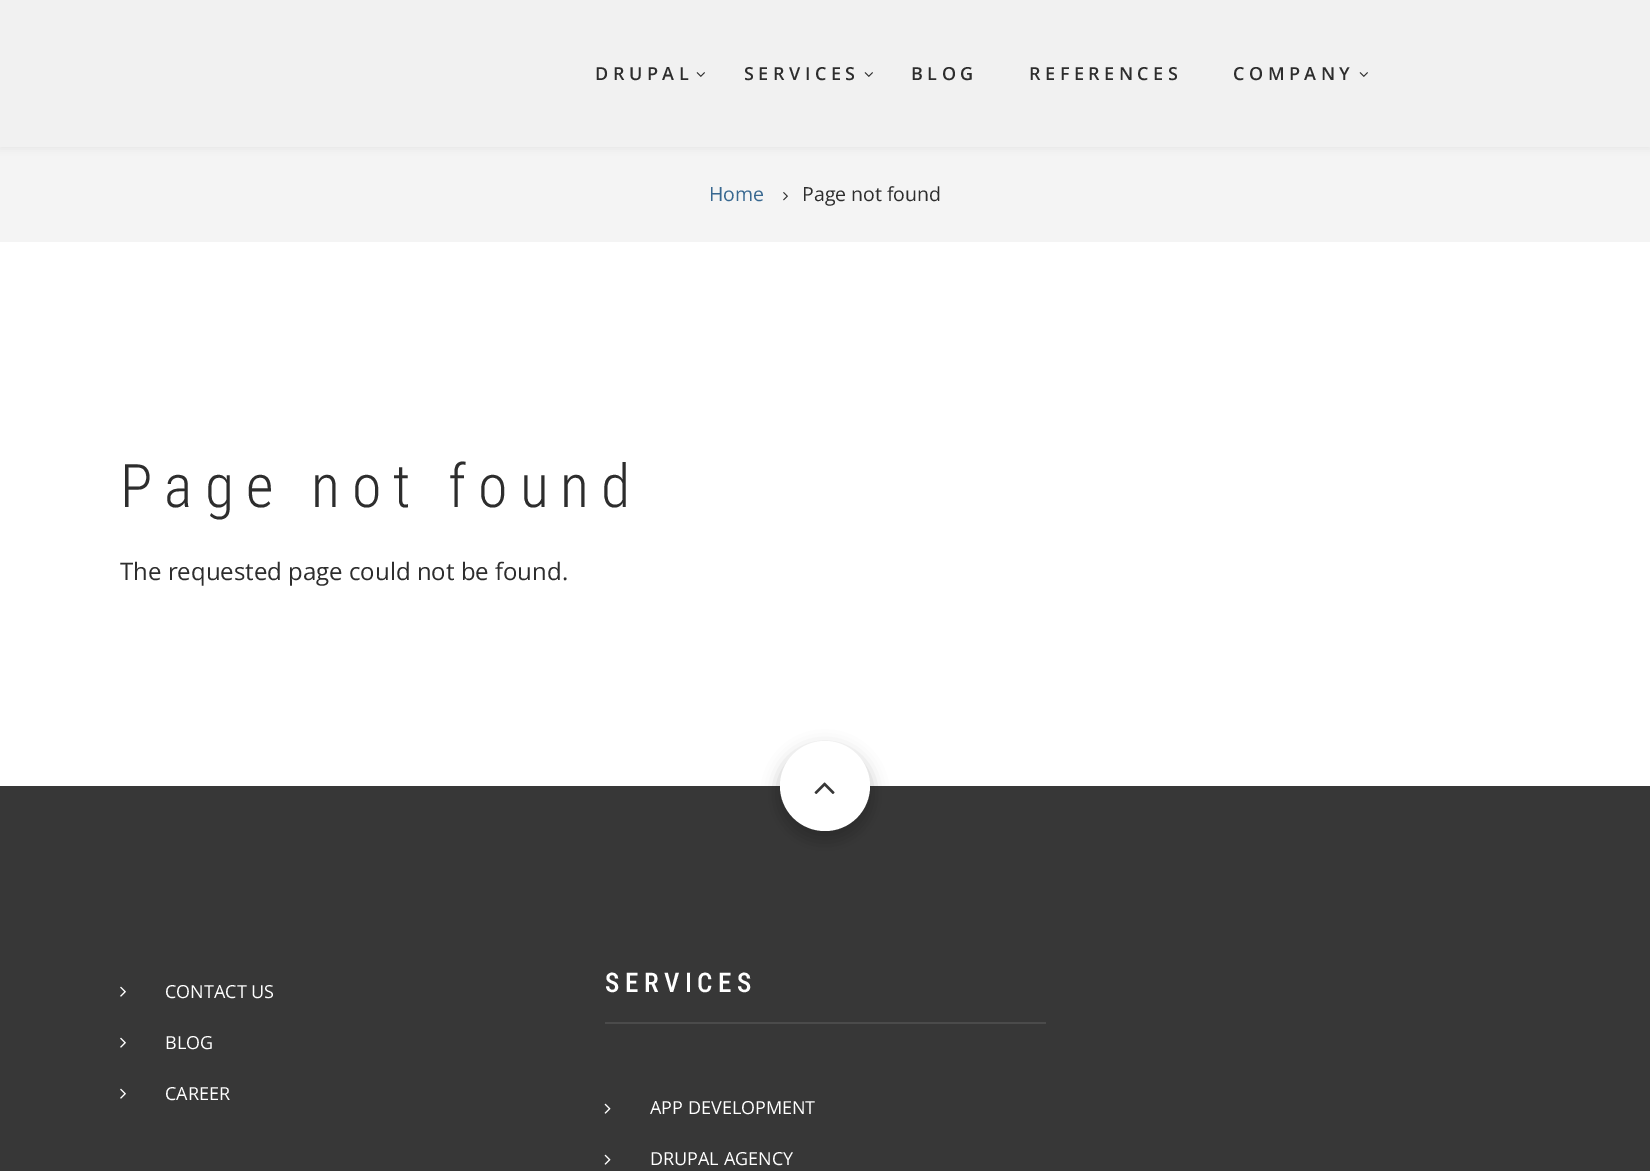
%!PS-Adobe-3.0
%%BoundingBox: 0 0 1650 1171
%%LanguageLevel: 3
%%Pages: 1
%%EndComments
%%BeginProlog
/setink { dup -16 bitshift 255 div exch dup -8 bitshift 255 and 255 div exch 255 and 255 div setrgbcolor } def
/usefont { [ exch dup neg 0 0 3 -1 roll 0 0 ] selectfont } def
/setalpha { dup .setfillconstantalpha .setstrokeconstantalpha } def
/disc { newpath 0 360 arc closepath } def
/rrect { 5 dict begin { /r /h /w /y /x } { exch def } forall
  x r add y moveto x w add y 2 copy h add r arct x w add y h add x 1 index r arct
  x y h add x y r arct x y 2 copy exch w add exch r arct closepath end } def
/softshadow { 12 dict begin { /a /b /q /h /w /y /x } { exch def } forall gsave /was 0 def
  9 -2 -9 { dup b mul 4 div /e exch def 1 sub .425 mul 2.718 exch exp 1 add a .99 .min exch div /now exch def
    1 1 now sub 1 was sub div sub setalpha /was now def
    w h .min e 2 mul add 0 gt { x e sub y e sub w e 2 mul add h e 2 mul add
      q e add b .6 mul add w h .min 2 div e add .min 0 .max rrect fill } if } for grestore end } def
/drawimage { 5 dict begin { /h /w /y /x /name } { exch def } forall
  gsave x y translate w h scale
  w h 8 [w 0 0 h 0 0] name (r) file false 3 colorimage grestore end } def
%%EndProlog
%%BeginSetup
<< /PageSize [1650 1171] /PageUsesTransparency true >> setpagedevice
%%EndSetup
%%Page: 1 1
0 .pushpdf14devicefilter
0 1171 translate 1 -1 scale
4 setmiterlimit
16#FFFFFF setink
0 0 1650 1171 rectfill
16#F4F4F4 setink
0 147 1650 95 rectfill
16#000000 setink
0 2 1650 147 0 4 0.05 softshadow
16#F1F1F1 setink
0 0 1650 147 rectfill
/OpenSans-SemiBold 18 usefont
16#2D2D2D setink
595 80 moveto 4.5 0 (DRUPAL) ashow
(img1.raw) 696 72 9 5 drawimage
744 80 moveto 4.5 0 (SERVICES) ashow
(img1.raw) 864 72 9 5 drawimage
911 80 moveto 4.5 0 (BLOG) ashow
1029 80 moveto 4.5 0 (REFERENCES) ashow
1233 80 moveto 4.5 0 (COMPANY) ashow
(img1.raw) 1359 72 9 5 drawimage
/OpenSans-Regular 19.5 usefont
16#386890 setink
709 201 moveto (Home) show
(img2.raw) 783 192 5 9 drawimage
16#2D2D2D setink
802 201 moveto (Page not found) show
/RobotoCondensed-Light 60 usefont
120 507 moveto 12 0 (Page not found) ashow
/OpenSans-Regular 24 usefont
120 580 moveto (The requested page could not be found.) show
16#373737 setink
0 786 1650 385 rectfill
16#000000 setink
777 746 96 96 48 7.5 0.2 softshadow
16#FFFFFF setink
825 786 45 disc fill
(img3.raw) 814 782 21 12 drawimage
(img4.raw) 120 986 6 11 drawimage
/OpenSans-Regular 18 usefont
165 998 moveto (CONTACT US) show
(img4.raw) 120 1037 6 11 drawimage
165 1049 moveto (BLOG) show
(img4.raw) 120 1088 6 11 drawimage
165 1100 moveto (CAREER) show
16#4B4B4B setink
605 1022 441 2 rectfill
/RobotoCondensed-Medium 27 usefont
16#FFFFFF setink
605 992 moveto 5.5 0 (SERVICES) ashow
(img5.raw) 604 1103 7 11 drawimage
/OpenSans-Regular 18 usefont
650 1114 moveto (APP DEVELOPMENT) show
(img5.raw) 604 1154 7 11 drawimage
650 1165 moveto (DRUPAL AGENCY) show
.poppdf14devicefilter showpage
%%EOF
